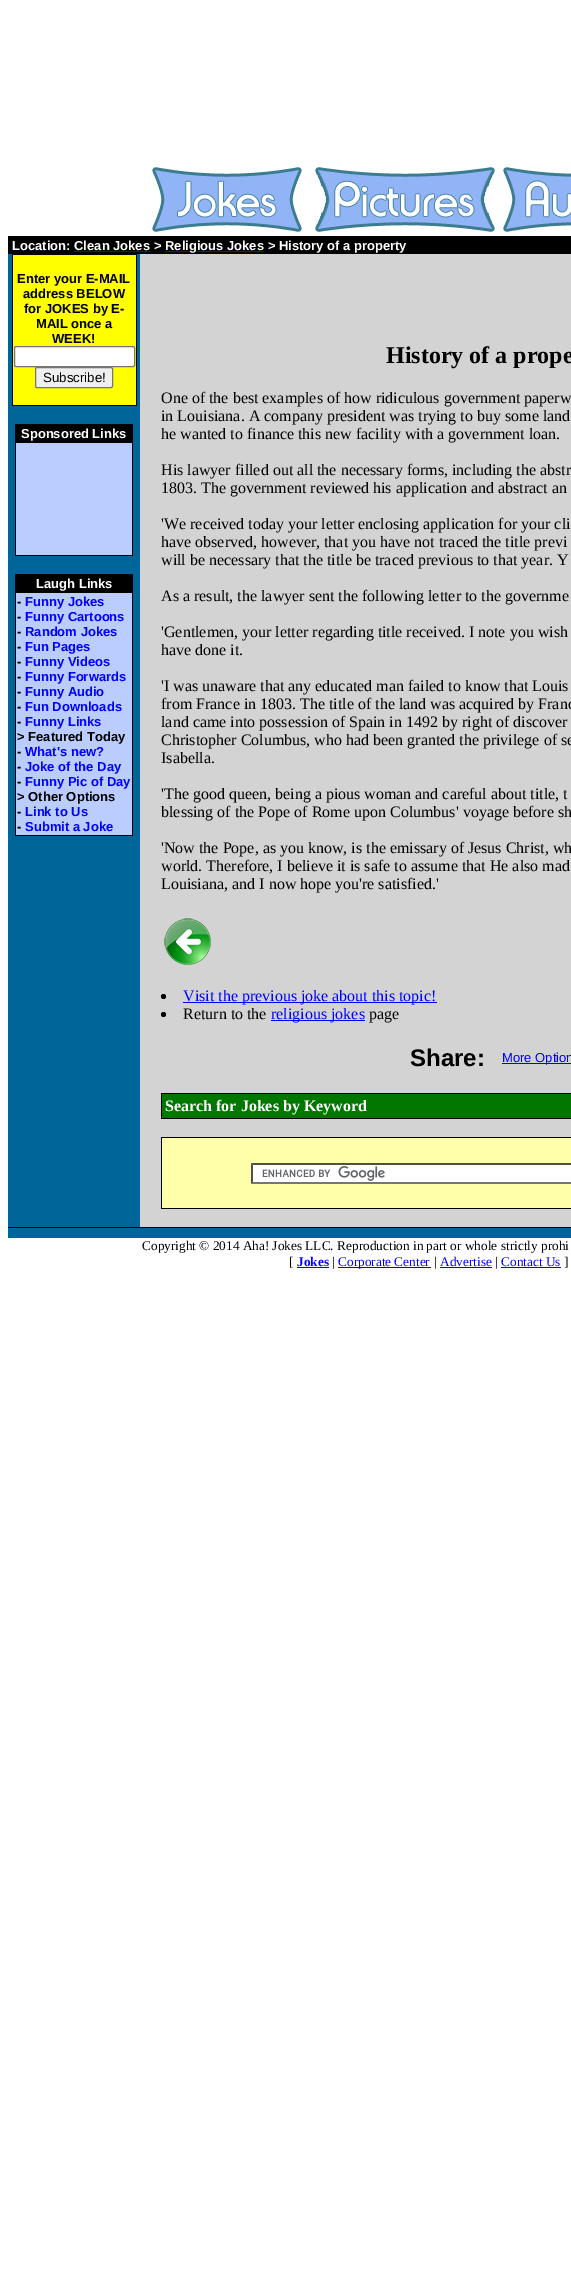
%!PS-Adobe-3.0
%%BoundingBox: 0 0 571 2295
%%LanguageLevel: 3
%%Pages: 1
%%EndComments
%%BeginProlog
/setink { dup -16 bitshift 255 div exch dup -8 bitshift 255 and 255 div exch 255 and 255 div setrgbcolor } def
/usefont { [ exch dup neg 0 0 3 -1 roll 0 0 ] selectfont } def
/disc { newpath 0 360 arc closepath } def
/rrect { 5 dict begin { /r /h /w /y /x } { exch def } forall
  x r add y moveto x w add y 2 copy h add r arct x w add y h add x 1 index r arct
  x y h add x y r arct x y 2 copy exch w add exch r arct closepath end } def
/drawimage { 5 dict begin { /h /w /y /x /name } { exch def } forall
  gsave x y translate w h scale
  w h 8 [w 0 0 h 0 0] name (r) file false 3 colorimage grestore end } def
%%EndProlog
%%BeginSetup
<< /PageSize [571 2295] >> setpagedevice
%%EndSetup
%%Page: 1 1
0 2295 translate 1 -1 scale
4 setmiterlimit
16#FFFFFF setink
0 0 571 2295 rectfill
16#006699 setink
8 254 563 984 rectfill
(img1.raw) 152 167 150 65 drawimage
(img2.raw) 315 167 180 65 drawimage
(img3.raw) 503 167 68 65 drawimage
16#000000 setink
8 236 563 18 rectfill
/LiberationSans-Bold 13 usefont
16#FFFFFF setink
12 250 moveto (Location: Clean Jokes >) show
16#0000FF setink
74 251 76 1 rectfill
165 251 99 1 rectfill
16#FFFFFF setink
165 250 moveto (Religious Jokes > History of a property) show
16#000000 setink
12 254 125 152 rectfill
16#FFFF00 setink
13 255 123 150 rectfill
16#000000 setink
[
    [(Enter your E-MAIL) 17 283]
    [(address BELOW) 23 298]
    [(for JOKES by E-) 24 313]
    [(MAIL once a) 36 328]
    [(WEEK!) 52 343]
] { aload pop moveto show } forall
16#FFFFFF setink
14.5 346.5 120 20 1.5 rrect gsave fill grestore
16#767676 setink
stroke
16#EFEFEF setink
35.5 367.5 77 20 1.5 rrect gsave fill grestore
16#767676 setink
stroke
/LiberationSans-Regular 13.3 usefont
16#000000 setink
43 382 moveto (Subscribe!) show
15 424 118 132 rectfill
/LiberationSans-Bold 13 usefont
16#FFFFFF setink
21 438 moveto (Sponsored Links) show
16#BBCCFF setink
16 443 116 112 rectfill
16#000000 setink
15 574 118 262 rectfill
16#FFFFFF setink
36 588 moveto (Laugh Links) show
16#BBCCFF setink
16 593 116 242 rectfill
16#000000 setink
17 606 moveto (-) show
16#0000FF setink
25 606 moveto (Funny Jokes) show
16#000000 setink
17 621 moveto (-) show
16#0000FF setink
25 621 moveto (Funny Cartoons) show
16#000000 setink
17 636 moveto (-) show
16#0000FF setink
25 636 moveto (Random Jokes) show
16#000000 setink
17 651 moveto (-) show
16#0000FF setink
25 651 moveto (Fun Pages) show
16#000000 setink
17 666 moveto (-) show
16#0000FF setink
25 666 moveto (Funny Videos) show
16#000000 setink
17 681 moveto (-) show
16#0000FF setink
25 681 moveto (Funny Forwards) show
16#000000 setink
17 696 moveto (-) show
16#0000FF setink
25 696 moveto (Funny Audio) show
16#000000 setink
17 711 moveto (-) show
16#0000FF setink
25 711 moveto (Fun Downloads) show
16#000000 setink
17 726 moveto (-) show
16#0000FF setink
25 726 moveto (Funny Links) show
16#000000 setink
17 741 moveto (> Featured Today) show
17 756 moveto (-) show
16#0000FF setink
25 756 moveto (What's new?) show
16#000000 setink
17 771 moveto (-) show
16#0000FF setink
25 771 moveto (Joke of the Day) show
16#000000 setink
17 786 moveto (-) show
16#0000FF setink
25 786 moveto (Funny Pic of Day) show
16#000000 setink
17 801 moveto (> Other Options) show
17 816 moveto (-) show
16#0000FF setink
25 816 moveto (Link to Us) show
16#000000 setink
17 831 moveto (-) show
16#0000FF setink
25 831 moveto (Submit a Joke) show
16#D3D3D3 setink
140 254 431 973 rectfill
/LiberationSerif-Bold 24 usefont
16#000000 setink
386 363 moveto (History of a prope) show
/LiberationSerif-Regular 16 usefont
[
    [(One of the best examples of how ridiculous government paperw) 161 403]
    [(in Louisiana. A company president was trying to buy some land) 161 421]
    [(he wanted to finance this new facility with a government loan.) 161 439]
    [(His lawyer filled out all the necessary forms, including the abstr) 161 475]
    [(1803. The government reviewed his application and abstract an) 161 493]
    [('We received today your letter enclosing application for your cli) 161 529]
    [(have observed, however, that you have not traced the title previ) 161 547]
    [(will be necessary that the title be traced previous to that year. Y) 161 565]
    [(As a result, the lawyer sent the following letter to the governme) 161 601]
    [('Gentlemen, your letter regarding title received. I note you wish) 161 637]
    [(have done it.) 161 655]
    [('I was unaware that any educated man failed to know that Louis) 161 691]
    [(from France in 1803. The title of the land was acquired by Franc) 161 709]
    [(land came into possession of Spain in 1492 by right of discover) 161 727]
    [(Christopher Columbus, who had been granted the privilege of se) 161 745]
    [(Isabella.) 161 763]
    [('The good queen, being a pious woman and careful about title, t) 161 799]
    [(blessing of the Pope of Rome upon Columbus' voyage before sh) 161 817]
    [('Now the Pope, as you know, is the emissary of Jesus Christ, wh) 161 853]
    [(world. Therefore, I believe it is safe to assume that He also mad) 161 871]
    [(Louisiana, and I now hope you're satisfied.') 161 889]
] { aload pop moveto show } forall
(img4.raw) 164 918 47 47 drawimage
163.5 996.5 2.5 disc fill
16#0000FF setink
183 1002 254 1 rectfill
183 1001 moveto (Visit the previous joke about this topic!) show
16#000000 setink
163.5 1014.5 2.5 disc fill
183 1019 moveto (Return to the) show
16#0000FF setink
271 1020 94 1 rectfill
271 1019 moveto (religious jokes) show
16#000000 setink
369 1019 moveto (page) show
/LiberationSans-Bold 24 usefont
410 1066 moveto (Share:) show
16#0000FF setink
502 1063 69 1 rectfill
/LiberationSans-Regular 13 usefont
502 1062 moveto (More Option) show
16#000000 setink
161 1093 410 26 rectfill
16#007700 setink
162 1094 409 24 rectfill
/LiberationSerif-Bold 16 usefont
16#FFFFFF setink
165 1111 moveto (Search for Jokes by Keyword) show
[
    [161 1137 410 72 16#000000]
    [162 1138 409 70 16#FFFFAA]
    [251 1163 320 21 16#FFFFFF]
] { aload pop setink rectfill } forall
(img5.raw) 262 1166 123 15 drawimage
16#4F4F4F setink
251 1163 moveto 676 1163 lineto 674 1165 lineto 253 1165 lineto closepath fill
16#767676 setink
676 1184 moveto 251 1184 lineto 253 1182 lineto 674 1182 lineto closepath fill
16#4F4F4F setink
251 1184 moveto 251 1163 lineto 253 1165 lineto 253 1182 lineto closepath fill
16#000000 setink
8 1227 563 1 rectfill
/LiberationSerif-Regular 13.3 usefont
142 1250 moveto (Copyright © 2014 Aha! Jokes LLC. Reproduction in part or whole strictly prohi) show
289 1266 moveto ([) show
/LiberationSerif-Bold 13.3 usefont
16#0000FF setink
297 1266 moveto (Jokes) show
297 1267 32 1 rectfill
/LiberationSerif-Regular 13.3 usefont
16#000000 setink
332 1266 moveto (|) show
16#0000FF setink
338 1267 93 1 rectfill
338 1266 moveto (Corporate Center) show
16#000000 setink
434 1266 moveto (|) show
16#0000FF setink
440 1266 moveto (Advertise) show
440 1267 52 1 rectfill
16#000000 setink
495 1266 moveto (|) show
16#0000FF setink
501 1266 moveto (Contact Us) show
501 1267 60 1 rectfill
16#000000 setink
564 1266 moveto (]) show
showpage
%%EOF
